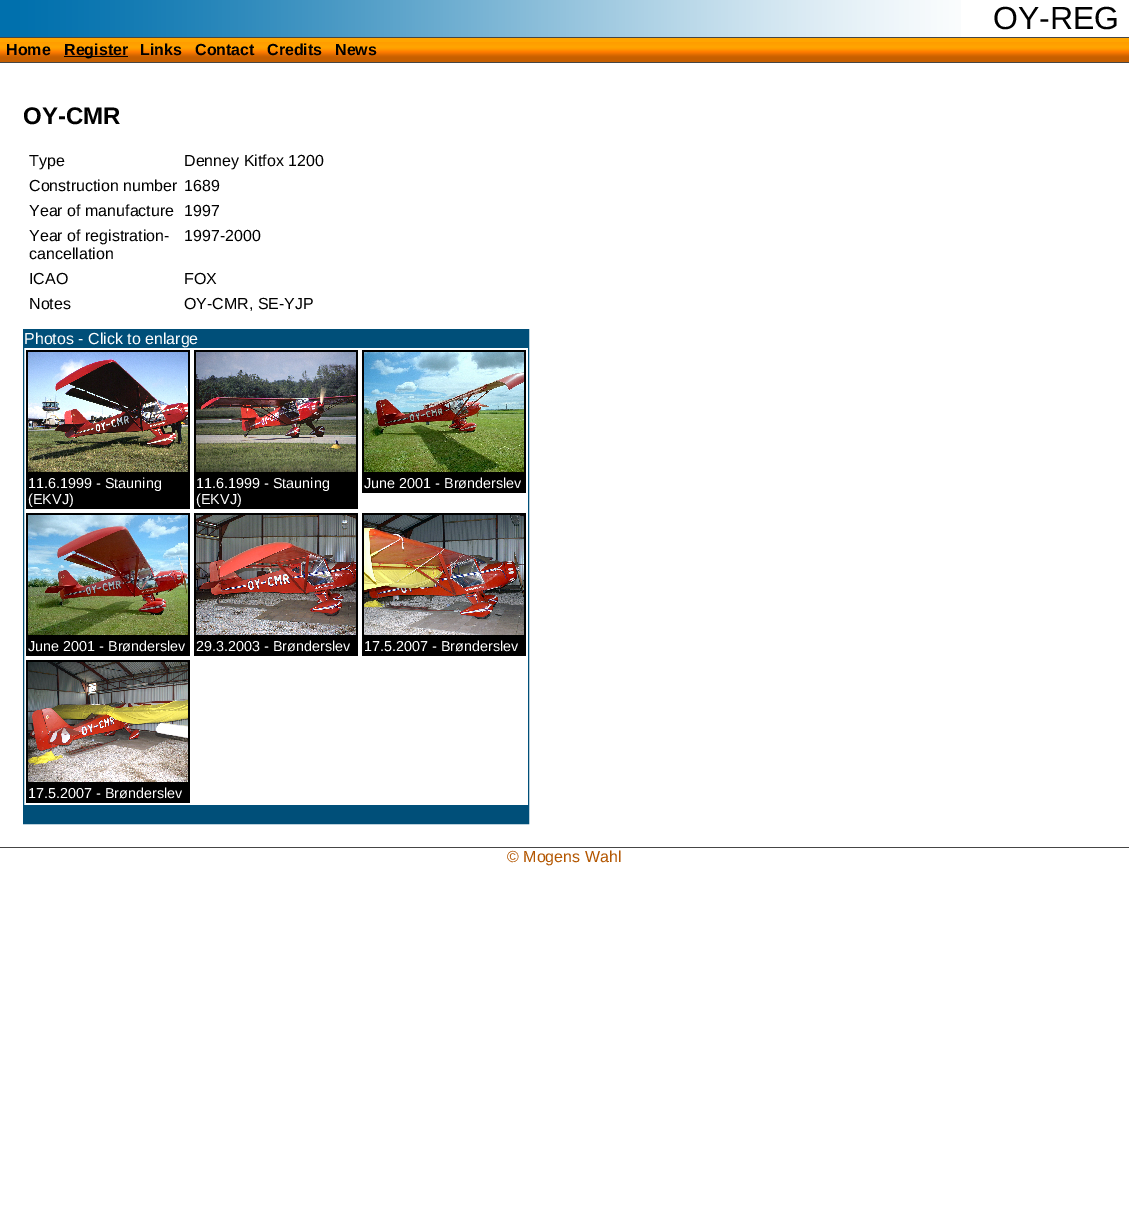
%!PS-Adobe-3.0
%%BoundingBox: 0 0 1129 1211
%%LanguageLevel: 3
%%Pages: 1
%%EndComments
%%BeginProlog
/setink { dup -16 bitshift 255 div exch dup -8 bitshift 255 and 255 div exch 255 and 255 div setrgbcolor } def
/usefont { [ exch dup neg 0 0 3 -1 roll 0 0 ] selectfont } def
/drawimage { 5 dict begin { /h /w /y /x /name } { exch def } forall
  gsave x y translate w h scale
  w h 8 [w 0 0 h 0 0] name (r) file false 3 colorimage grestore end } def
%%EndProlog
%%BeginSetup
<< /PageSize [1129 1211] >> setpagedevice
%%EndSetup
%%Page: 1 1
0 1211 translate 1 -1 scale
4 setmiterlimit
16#FFFFFF setink
0 0 1129 1211 rectfill
(img1.raw) 0 0 961 37 drawimage
/LiberationSans-Regular 32 usefont
16#000000 setink
993 29 moveto (OY-REG) show
16#FFA500 setink
0 38 1129 4 rectfill
(img2.raw) 0 42 1129 20 drawimage
16#454545 setink
0 37 1129 1 rectfill
0 62 1129 1 rectfill
/LiberationSans-Bold 16 usefont
16#000000 setink
6 55 moveto (Home) show
64 56 64 1 rectfill
[
    [(Register) 64 55]
    [(Links) 140 55]
    [(Contact) 195 55]
    [(Credits) 267 55]
    [(News) 335 55]
] { aload pop moveto show } forall
/LiberationSans-Bold 24 usefont
23 124 moveto (OY-CMR) show
/LiberationSans-Regular 16 usefont
[
    [(Type) 29 166]
    [(Denney Kitfox 1200) 184 166]
    [(Construction number) 29 191]
    [(1689) 184 191]
    [(Year of manufacture) 29 216]
    [(1997) 184 216]
    [(Year of registration-) 29 241]
    [(cancellation) 29 259]
    [(1997-2000) 184 241]
    [(ICAO) 29 284]
    [(FOX) 184 284]
    [(Notes) 29 309]
    [(OY-CMR, SE-YJP) 184 309]
] { aload pop moveto show } forall
16#004F79 setink
23.5 329.5 505 494 rectstroke
24 330 504 18 rectfill
16#FFFFFF setink
24 344 moveto (Photos - Click to enlarge) show
16#000000 setink
26 350 164 159 rectfill
(img3.raw) 28 352 160 120 drawimage
/LiberationSans-Regular 14.4 usefont
16#FFFFFF setink
28 488 moveto (11.6.1999 - Stauning) show
28 504 moveto (\(EKVJ\)) show
16#000000 setink
194 350 164 159 rectfill
(img4.raw) 196 352 160 120 drawimage
16#FFFFFF setink
196 488 moveto (11.6.1999 - Stauning) show
196 504 moveto (\(EKVJ\)) show
16#000000 setink
362 350 164 143 rectfill
(img5.raw) 364 352 160 120 drawimage
16#FFFFFF setink
364 488 moveto (June 2001 - Brønderslev) show
16#000000 setink
26 513 164 143 rectfill
(img6.raw) 28 515 160 120 drawimage
16#FFFFFF setink
28 651 moveto (June 2001 - Brønderslev) show
16#000000 setink
194 513 164 143 rectfill
(img7.raw) 196 515 160 120 drawimage
16#FFFFFF setink
196 651 moveto (29.3.2003 - Brønderslev) show
16#000000 setink
362 513 164 143 rectfill
(img8.raw) 364 515 160 120 drawimage
16#FFFFFF setink
364 651 moveto (17.5.2007 - Brønderslev) show
16#000000 setink
26 660 164 143 rectfill
(img9.raw) 28 662 160 120 drawimage
16#FFFFFF setink
28 798 moveto (17.5.2007 - Brønderslev) show
16#004F79 setink
24 805 504 18 rectfill
16#454545 setink
0 847 1129 1 rectfill
/LiberationSans-Regular 16 usefont
16#B35600 setink
507 862 moveto (© Mogens Wahl) show
showpage
%%EOF
